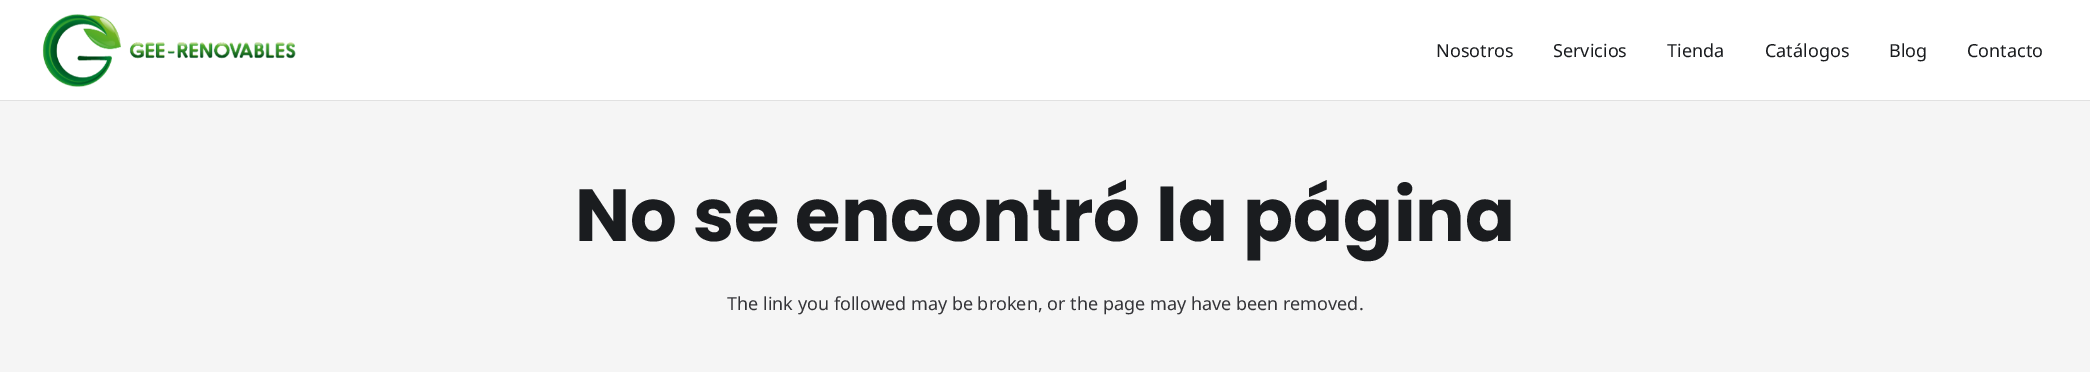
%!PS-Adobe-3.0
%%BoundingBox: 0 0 2090 372
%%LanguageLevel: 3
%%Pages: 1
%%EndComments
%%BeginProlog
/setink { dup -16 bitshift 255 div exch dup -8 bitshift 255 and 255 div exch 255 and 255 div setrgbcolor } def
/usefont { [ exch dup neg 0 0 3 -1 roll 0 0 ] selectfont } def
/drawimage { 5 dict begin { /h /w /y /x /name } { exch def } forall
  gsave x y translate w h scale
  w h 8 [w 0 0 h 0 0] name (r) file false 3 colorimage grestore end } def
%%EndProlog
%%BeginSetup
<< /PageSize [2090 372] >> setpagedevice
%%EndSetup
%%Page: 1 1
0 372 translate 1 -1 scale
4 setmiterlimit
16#F5F5F5 setink
0 0 2090 372 rectfill
16#E1E1E1 setink
0 100 2090 1 rectfill
16#FFFFFF setink
0 0 2090 100 rectfill
(img1.raw) 42 14 254 73 drawimage
/NotoSans-Regular 18 usefont
16#1A1C1F setink
[
    [(Nosotros) 1436 57]
    [(Servicios) 1553 57]
    [(Tienda) 1667 57]
    [(Catálogos) 1765 57]
    [(Blog) 1889 57]
    [(Contacto) 1967 57]
] { aload pop moveto show } forall
/Poppins-Bold 73.75 usefont
575 241 moveto (No se encontró la página) show
/NotoSans-Regular 18 usefont
16#343438 setink
727 310 moveto (The link you followed may be broken, or the page may have been removed.) show
showpage
%%EOF
